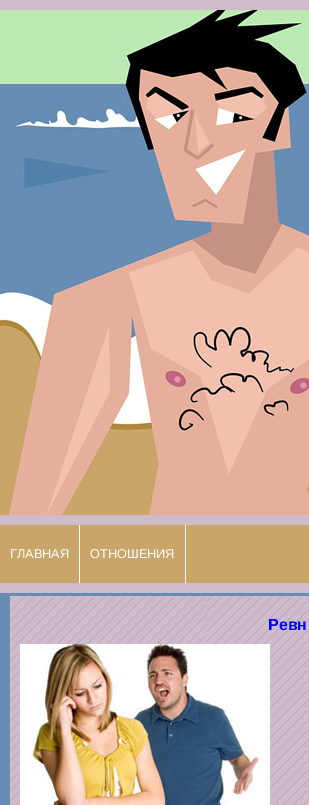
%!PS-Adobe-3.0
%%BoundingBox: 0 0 309 805
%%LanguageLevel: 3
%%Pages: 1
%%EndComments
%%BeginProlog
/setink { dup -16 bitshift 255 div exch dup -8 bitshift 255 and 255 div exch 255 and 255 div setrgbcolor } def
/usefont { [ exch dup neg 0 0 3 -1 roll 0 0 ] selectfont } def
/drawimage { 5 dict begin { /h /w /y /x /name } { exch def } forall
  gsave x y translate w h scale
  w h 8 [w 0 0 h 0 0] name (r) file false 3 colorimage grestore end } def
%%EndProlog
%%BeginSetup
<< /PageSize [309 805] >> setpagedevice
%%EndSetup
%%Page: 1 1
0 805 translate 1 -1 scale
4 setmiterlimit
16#CEBCCB setink
0 0 309 805 rectfill
(img1.raw) 0 10 309 505 drawimage
16#C9A569 setink
0 525 309 58 rectfill
16#FFFFFF setink
79 525 1 58 rectfill
/LiberationSans-Regular 12.75 usefont
10 558 moveto (ГЛАВНАЯ) show
185 525 1 58 rectfill
90 558 moveto (ОТНОШЕНИЯ) show
16#668DB4 setink
0 593 309 212 rectfill
(img2.raw) 10 596 299 209 drawimage
/LiberationSans-Bold 16 usefont
16#0000FF setink
268 630 moveto (Ревн) show
(img3.raw) 20 644 250 161 drawimage
showpage
%%EOF
